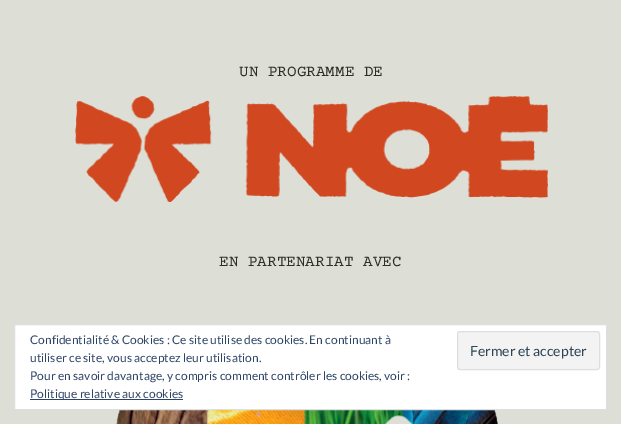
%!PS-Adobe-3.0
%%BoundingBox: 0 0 621 424
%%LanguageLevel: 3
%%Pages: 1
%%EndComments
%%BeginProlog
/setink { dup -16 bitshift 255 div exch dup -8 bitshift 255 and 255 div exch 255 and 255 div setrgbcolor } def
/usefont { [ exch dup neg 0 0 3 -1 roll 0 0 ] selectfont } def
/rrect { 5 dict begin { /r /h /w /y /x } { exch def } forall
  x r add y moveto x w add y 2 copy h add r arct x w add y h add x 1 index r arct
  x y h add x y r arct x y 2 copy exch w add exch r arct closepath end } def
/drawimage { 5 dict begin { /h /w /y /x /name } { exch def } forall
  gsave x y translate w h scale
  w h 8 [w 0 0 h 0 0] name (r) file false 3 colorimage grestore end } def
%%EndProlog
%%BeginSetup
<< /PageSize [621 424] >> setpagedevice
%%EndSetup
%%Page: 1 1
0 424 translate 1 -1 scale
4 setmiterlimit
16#DDDED5 setink
0 0 621 424 rectfill
/CourierPrime-Regular 16 usefont
16#2C2F27 setink
239 76 moveto (UN PROGRAMME DE) show
(img1.raw) 75 96 473 106 drawimage
219 266 moveto (EN PARTENARIAT AVEC) show
(img2.raw) 116 410 382 14 drawimage
16#FFFFFF setink
14.5 324.5 moveto 606.5 324.5 lineto 606.5 409.5 lineto 14.5 409.5 lineto closepath gsave fill grestore
16#DEDEDE setink
stroke
/Lato-Regular 12 usefont
16#2E4467 setink
30 344 moveto (Confidentialité & Cookies : Ce site utilise des cookies. En continuant à) show
30 362 moveto (utiliser ce site, vous acceptez leur utilisation.) show
16#F3F3F3 setink
457.5 331.5 142 38 2.5 rrect gsave fill grestore
16#DEDEDE setink
stroke
/Lato-Regular 14 usefont
16#2E4453 setink
470 356 moveto (Fermer et accepter) show
/Lato-Regular 12 usefont
16#2E4467 setink
30 380 moveto (Pour en savoir davantage, y compris comment contrôler les cookies, voir :) show
30 399 153 1 rectfill
30 398 moveto (Politique relative aux cookies) show
showpage
%%EOF
